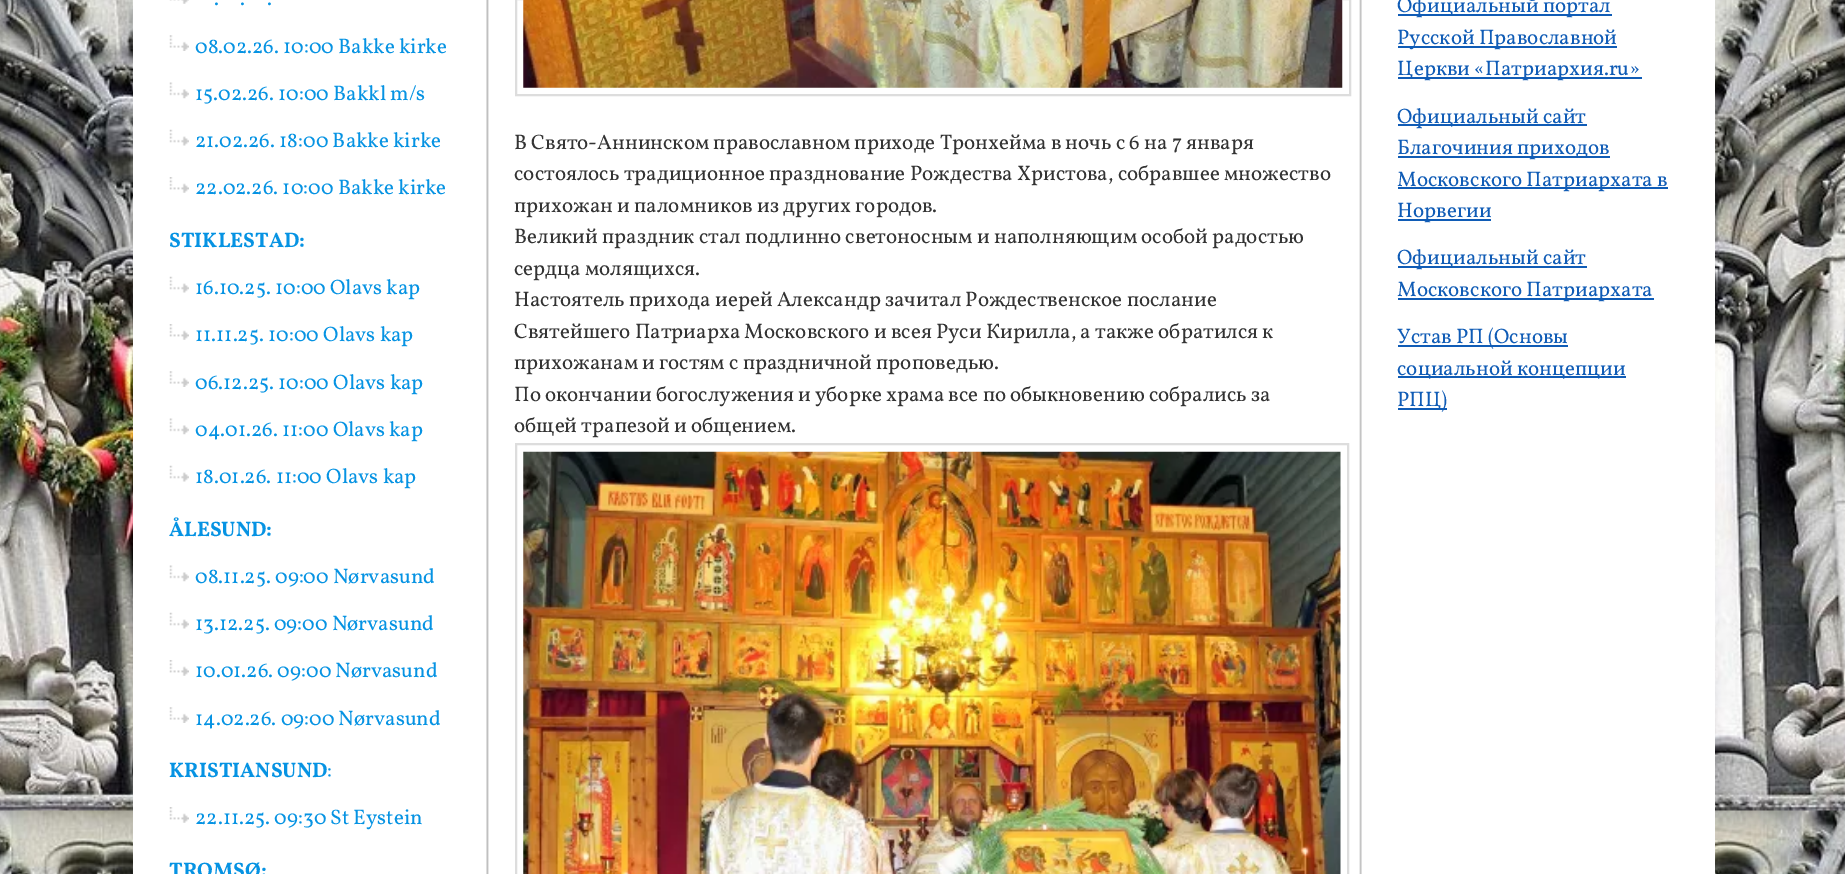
%!PS-Adobe-3.0
%%BoundingBox: 0 0 1845 874
%%LanguageLevel: 3
%%Pages: 1
%%EndComments
%%BeginProlog
/setink { dup -16 bitshift 255 div exch dup -8 bitshift 255 and 255 div exch 255 and 255 div setrgbcolor } def
/usefont { [ exch dup neg 0 0 3 -1 roll 0 0 ] selectfont } def
/drawimage { 5 dict begin { /h /w /y /x /name } { exch def } forall
  gsave x y translate w h scale
  w h 8 [w 0 0 h 0 0] name (r) file false 3 colorimage grestore end } def
%%EndProlog
%%BeginSetup
<< /PageSize [1845 874] >> setpagedevice
%%EndSetup
%%Page: 1 1
0 874 translate 1 -1 scale
4 setmiterlimit
16#FFFFFF setink
0 0 1845 874 rectfill
(img1.raw) 0 0 1845 874 drawimage
133 0 1582 874 rectfill
(img2.raw) 169 0 20 4 drawimage
/Vollkorn-Regular 21 usefont
16#0693E3 setink
[
    [(.) 214 5]
    [(.) 240 5]
    [(.) 267 5]
] { aload pop moveto show } forall
(img3.raw) 169 35 20 16 drawimage
195 53 moveto (08.02.26. 10:00 Bakke kirke) show
(img4.raw) 169 82 20 17 drawimage
195 100 moveto (15.02.26. 10:00 Bakkl m/s) show
(img5.raw) 169 129 20 17 drawimage
195 147 moveto (21.02.26. 18:00 Bakke kirke) show
(img6.raw) 169 177 20 16 drawimage
195 194 moveto (22.02.26. 10:00 Bakke kirke) show
/Vollkorn-Bold 21 usefont
169 247 moveto (STIKLESTAD:) show
(img5.raw) 169 276 20 17 drawimage
/Vollkorn-Regular 21 usefont
195 294 moveto (16.10.25. 10:00 Olavs kap) show
(img6.raw) 169 324 20 16 drawimage
195 341 moveto (11.11.25. 10:00 Olavs kap) show
(img3.raw) 169 371 20 16 drawimage
195 389 moveto (06.12.25. 10:00 Olavs kap) show
(img4.raw) 169 418 20 17 drawimage
195 436 moveto (04.01.26. 11:00 Olavs kap) show
(img5.raw) 169 465 20 17 drawimage
195 483 moveto (18.01.26. 11:00 Olavs kap) show
/Vollkorn-Bold 21 usefont
169 536 moveto (ÅLESUND:) show
(img4.raw) 169 565 20 17 drawimage
/Vollkorn-Regular 21 usefont
195 583 moveto (08.11.25. 09:00 Nørvasund) show
(img5.raw) 169 612 20 17 drawimage
195 630 moveto (13.12.25. 09:00 Nørvasund) show
(img6.raw) 169 660 20 16 drawimage
195 677 moveto (10.01.26. 09:00 Nørvasund) show
(img3.raw) 169 707 20 16 drawimage
195 725 moveto (14.02.26. 09:00 Nørvasund) show
/Vollkorn-Bold 21 usefont
169 777 moveto (KRISTIANSUND) show
/Vollkorn-Regular 21 usefont
327 777 moveto (:) show
(img6.raw) 169 807 20 16 drawimage
195 824 moveto (22.11.25. 09:30 St Eystein) show
/Vollkorn-Bold 21 usefont
169 877 moveto (TROMSØ:) show
(img7.raw) 486 0 876 874 drawimage
16#DDDDDD setink
2 setlinewidth
516 -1 834 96 rectstroke
(img8.raw) 523 0 820 88 drawimage
/Vollkorn-Regular 21 usefont
16#333333 setink
[
    [(В Свято-Аннинском православном приходе Тронхейма в ночь с 6 на 7 января) 514 149]
    [(состоялось традиционное празднование Рождества Христова, собравшее множество) 514 180]
    [(прихожан и паломников из других городов.) 514 212]
    [(Великий праздник стал подлинно светоносным и наполняющим особой радостью) 514 243]
    [(сердца молящихся.) 514 275]
    [(Настоятель прихода иерей Александр зачитал Рождественское послание) 514 306]
    [(Святейшего Патриарха Московского и всея Руси Кирилла, а также обратился к) 514 338]
    [(прихожанам и гостям с праздничной проповедью.) 514 369]
    [(По окончании богослужения и уборке храма все по обыкновению собрались за) 514 401]
    [(общей трапезой и общением.) 514 432]
] { aload pop moveto show } forall
16#DDDDDD setink
516 444 832 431 rectstroke
(img9.raw) 523 451 818 423 drawimage
16#105CB6 setink
1398 14 214 2 rectfill
1397 12 moveto (Официальный портал) show
1398 46 219 2 rectfill
1397 44 moveto (Русской Православной) show
1398 77 244 2 rectfill
1397 75 moveto (Церкви «Патриархия.ru») show
1398 124 189 2 rectfill
1397 123 moveto (Официальный сайт) show
1398 156 212 2 rectfill
1397 154 moveto (Благочиния приходов) show
1398 187 270 2 rectfill
1397 186 moveto (Московского Патриархата в) show
1398 219 93 2 rectfill
1397 217 moveto (Норвегии) show
1398 266 189 2 rectfill
1397 264 moveto (Официальный сайт) show
1398 298 256 2 rectfill
1397 296 moveto (Московского Патриархата) show
1398 345 170 2 rectfill
1397 343 moveto (Устав РП \(Основы) show
1398 376 228 2 rectfill
1397 375 moveto (социальной концепции) show
1398 408 49 2 rectfill
1397 406 moveto (РПЦ\)) show
showpage
%%EOF
